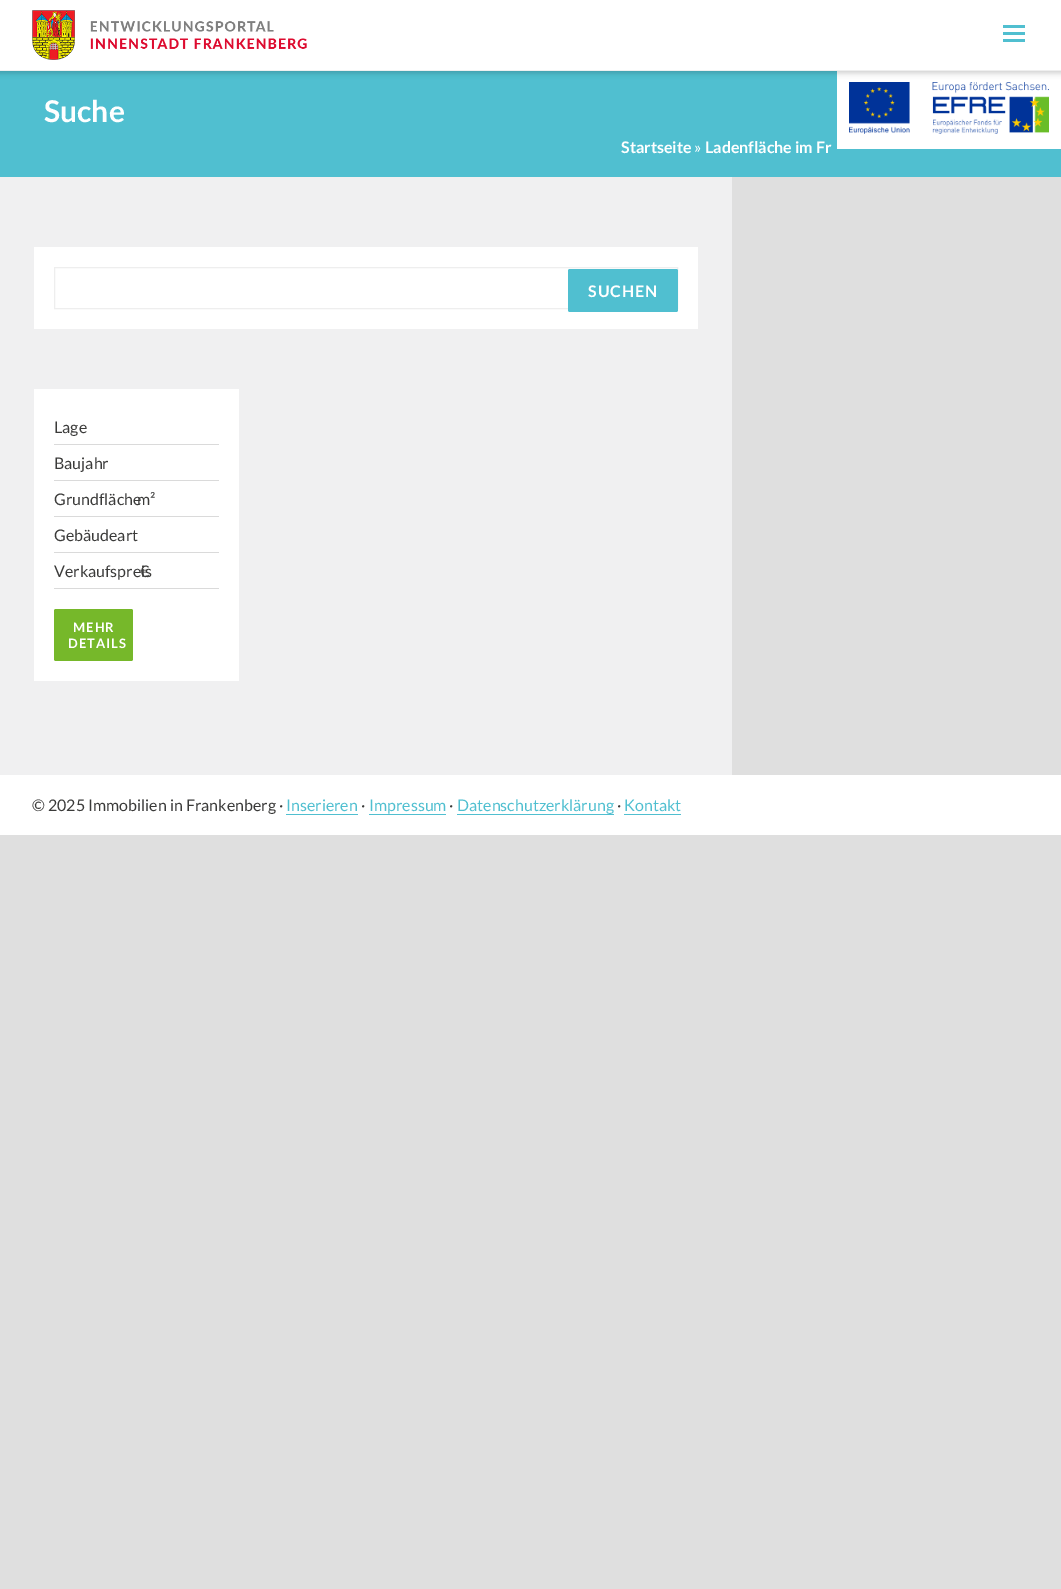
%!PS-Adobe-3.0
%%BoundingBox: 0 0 1061 1589
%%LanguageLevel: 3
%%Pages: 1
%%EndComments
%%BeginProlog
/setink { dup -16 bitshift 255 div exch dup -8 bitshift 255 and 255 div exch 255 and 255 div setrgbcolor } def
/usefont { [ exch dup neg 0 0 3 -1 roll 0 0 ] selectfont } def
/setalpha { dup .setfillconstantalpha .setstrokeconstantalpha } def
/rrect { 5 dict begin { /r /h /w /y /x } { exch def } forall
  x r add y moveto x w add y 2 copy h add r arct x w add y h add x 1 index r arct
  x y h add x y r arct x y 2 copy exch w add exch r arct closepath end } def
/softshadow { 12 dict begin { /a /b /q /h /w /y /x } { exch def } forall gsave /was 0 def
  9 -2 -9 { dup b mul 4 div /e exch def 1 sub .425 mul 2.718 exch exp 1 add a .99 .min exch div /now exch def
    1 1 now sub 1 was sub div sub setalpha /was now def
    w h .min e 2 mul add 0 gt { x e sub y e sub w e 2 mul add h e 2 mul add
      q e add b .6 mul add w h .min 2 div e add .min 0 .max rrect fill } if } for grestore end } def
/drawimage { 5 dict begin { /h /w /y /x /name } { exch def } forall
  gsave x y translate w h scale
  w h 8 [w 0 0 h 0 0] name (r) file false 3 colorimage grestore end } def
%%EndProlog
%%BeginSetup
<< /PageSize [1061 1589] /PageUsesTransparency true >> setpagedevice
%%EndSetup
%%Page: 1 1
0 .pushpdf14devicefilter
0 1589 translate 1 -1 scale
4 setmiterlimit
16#DFDFDF setink
0 0 1061 1589 rectfill
16#50BFD0 setink
0 71 1061 106 rectfill
16#FFFFFF setink
837 71 224 78 rectfill
(img2.raw) 849 82 200 52 drawimage
16#000000 setink
-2 -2 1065 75 0 3 0.2 softshadow
16#FFFFFF setink
0 0 1061 70 rectfill
16#EFEFEF setink
0 70 1061 1 rectfill
(img1.raw) 32 10 275 50 drawimage
[
    [1003 32 22 3 16#50BFD0]
    [1003 25 22 3 16#50BFD0]
    [1003 39 22 3 16#50BFD0]
] { aload pop setink rectfill } forall
/Lato-Bold 30 usefont
16#FFFFFF setink
44 122 moveto (Suche) show
/Lato-Bold 16 usefont
621 153 moveto (Startseite) show
/Lato-Regular 16 usefont
694 153 moveto (») show
/Lato-Bold 16 usefont
705 153 moveto (Ladenfläche im Fr) show
16#F0F0F1 setink
0 177 732 598 rectfill
16#FFFFFF setink
34 247 664 82 rectfill
16#EEEEEE setink
54.5 267.5 623 41 rectstroke
16#50BFD0 setink
568 269 110 43 2 rrect fill
16#FFFFFF setink
588 297 moveto 1 0 (SUCHEN) ashow
34 389 205 292 rectfill
16#DADADA setink
54 444 165 1 rectfill
/Lato-Regular 16 usefont
16#3B3B3A setink
54 433 moveto (Lage) show
16#DADADA setink
54 480 165 1 rectfill
16#3B3B3A setink
54 469 moveto (Baujahr) show
16#DADADA setink
54 516 165 1 rectfill
16#3B3B3A setink
54 505 moveto (Grundfläche) show
137 505 moveto (m²) show
16#DADADA setink
54 552 165 1 rectfill
16#3B3B3A setink
54 541 moveto (Gebäudeart) show
16#DADADA setink
54 588 165 1 rectfill
16#3B3B3A setink
54 577 moveto (Verkaufspreis) show
140 577 moveto (€) show
16#76B82A setink
54 609 79 52 2 rrect fill
/Lato-Bold 13 usefont
16#FFFFFF setink
73 632 moveto 1 0 (MEHR) ashow
68 648 moveto 1 0 (DETAILS) ashow
0 775 1061 60 rectfill
/Lato-Regular 16 usefont
16#3B3B3A setink
32 811 moveto (© 2025 Immobilien in Frankenberg ·) show
16#50BFD0 setink
286 811 moveto (Inserieren) show
286 814 72 1 rectfill
16#3B3B3A setink
361 811 moveto (·) show
16#50BFD0 setink
369 811 moveto (Impressum) show
369 814 77 1 rectfill
16#3B3B3A setink
449 811 moveto (·) show
16#50BFD0 setink
457 811 moveto (Datenschutzerklärung) show
457 814 157 1 rectfill
16#3B3B3A setink
617 811 moveto (·) show
16#50BFD0 setink
624 811 moveto (Kontakt) show
624 814 57 1 rectfill
.poppdf14devicefilter showpage
%%EOF
